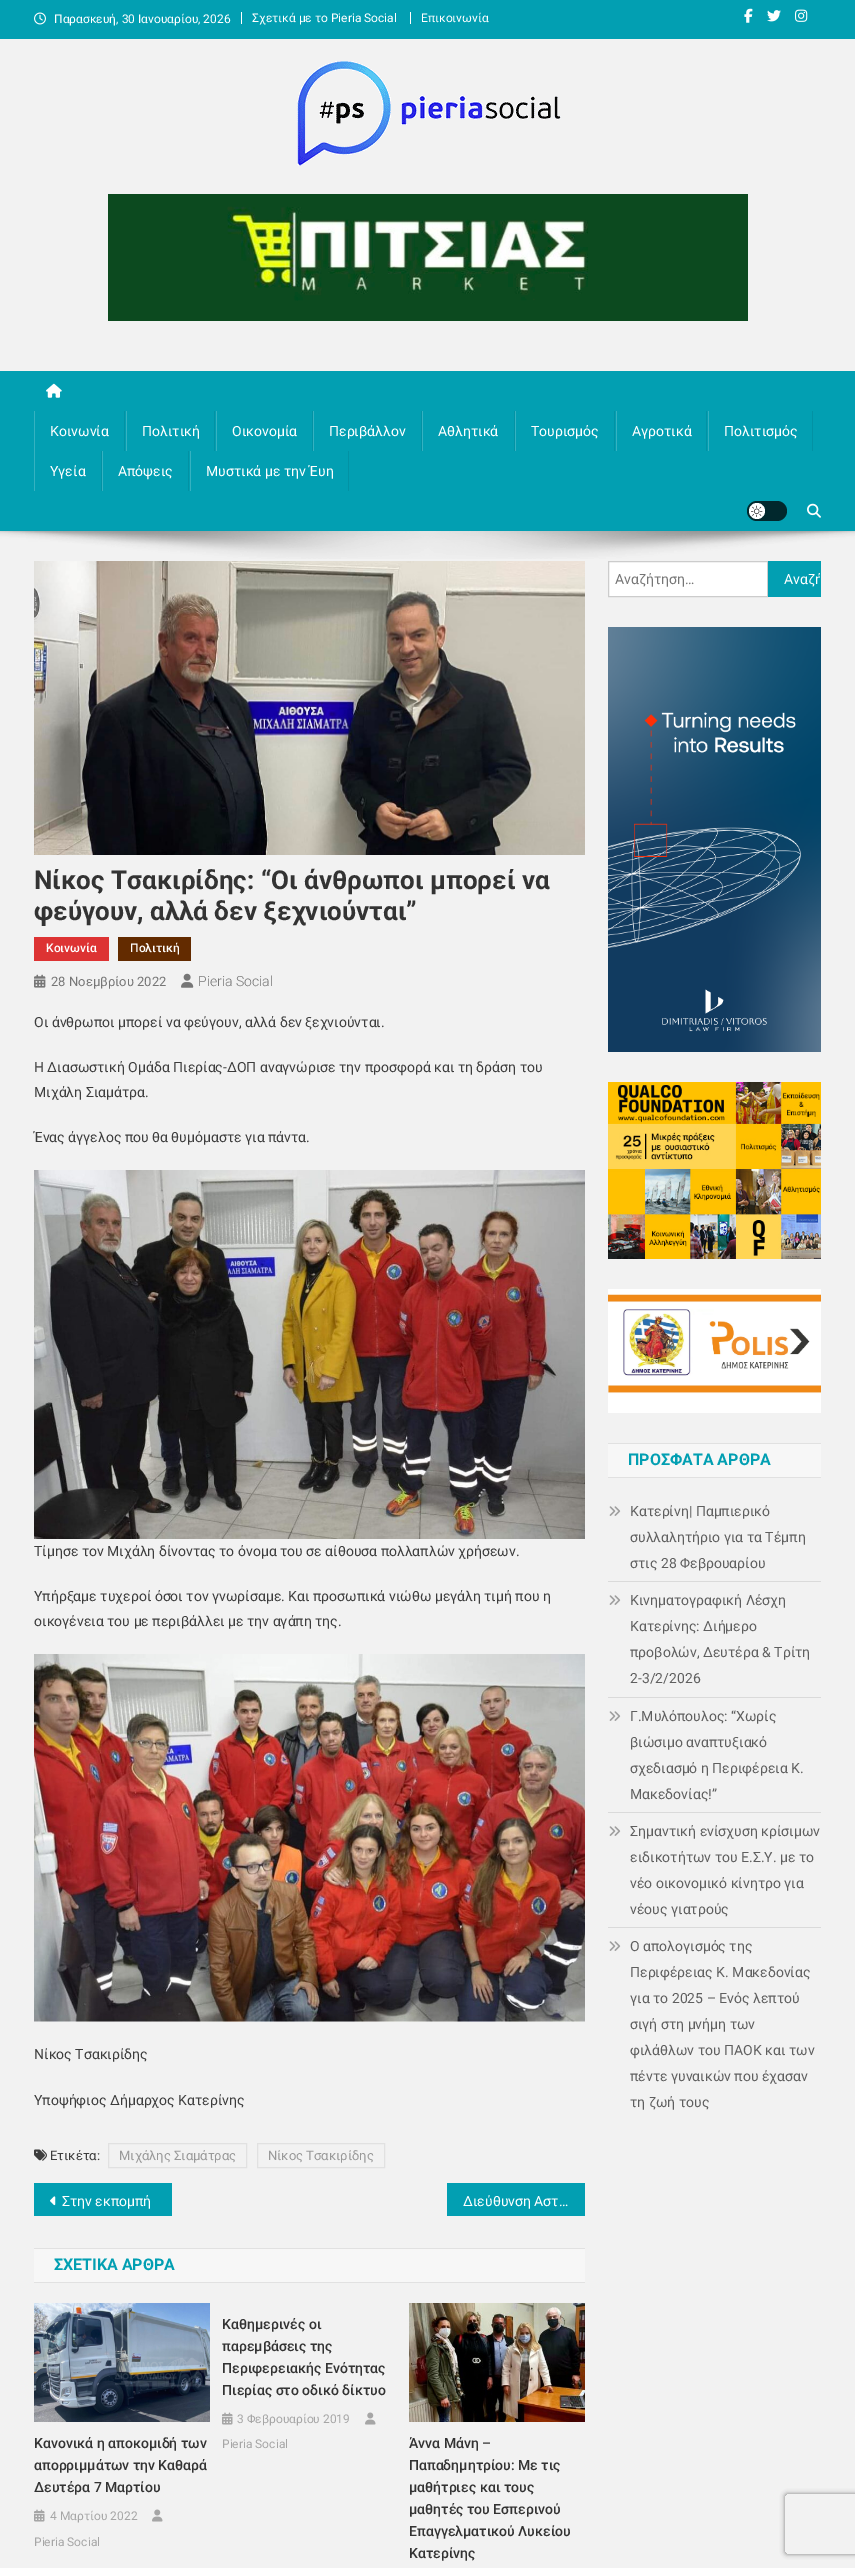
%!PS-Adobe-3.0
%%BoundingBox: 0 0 855 2568
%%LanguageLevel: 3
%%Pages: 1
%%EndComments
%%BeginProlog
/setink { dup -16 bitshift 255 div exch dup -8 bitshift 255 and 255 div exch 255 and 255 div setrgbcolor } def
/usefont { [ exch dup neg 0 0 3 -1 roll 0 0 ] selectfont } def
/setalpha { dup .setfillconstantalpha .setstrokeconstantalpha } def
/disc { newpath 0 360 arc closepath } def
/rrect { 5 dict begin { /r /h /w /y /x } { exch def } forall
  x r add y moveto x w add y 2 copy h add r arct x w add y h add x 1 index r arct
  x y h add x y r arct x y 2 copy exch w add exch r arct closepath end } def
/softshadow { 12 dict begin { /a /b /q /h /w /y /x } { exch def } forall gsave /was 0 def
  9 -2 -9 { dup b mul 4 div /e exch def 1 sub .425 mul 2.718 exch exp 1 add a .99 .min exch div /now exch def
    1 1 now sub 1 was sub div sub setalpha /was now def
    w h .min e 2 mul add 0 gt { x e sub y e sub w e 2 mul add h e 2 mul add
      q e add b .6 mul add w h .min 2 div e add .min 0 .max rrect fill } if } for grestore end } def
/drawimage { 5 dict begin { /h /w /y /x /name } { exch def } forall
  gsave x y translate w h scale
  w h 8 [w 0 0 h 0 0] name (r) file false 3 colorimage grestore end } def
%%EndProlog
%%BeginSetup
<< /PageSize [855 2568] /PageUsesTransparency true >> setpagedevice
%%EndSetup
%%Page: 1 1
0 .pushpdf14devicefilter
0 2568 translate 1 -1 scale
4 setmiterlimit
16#F2F2F2 setink
0 0 855 2568 rectfill
16#029FB2 setink
0 0 855 39 rectfill
(img1.raw) 34 12 12 13 drawimage
/Roboto-Regular 12 usefont
16#FFFFFF setink
54 23 moveto (Παρασκευή, 30 Ιανουαρίου, 2026) show
241 12 1 12 rectfill
252 22 moveto (Σχετικά με το Pieria Social) show
410 12 1 12 rectfill
421 22 moveto (Επικοινωνία) show
(img2.raw) 744 8 9 15 drawimage
(img3.raw) 767 10 14 12 drawimage
(img4.raw) 795 9 13 13 drawimage
(img5.raw) 297 61 264 105 drawimage
(img6.raw) 108 194 640 127 drawimage
16#029FB2 setink
0 371 855 160 rectfill
(img7.raw) 46 383 16 15 drawimage
16#0292A4 setink
124 411 1 40 rectfill
16#35B2C1 setink
34 411 1 80 rectfill
/Roboto-Regular 14 usefont
16#FFFFFF setink
50 436 moveto (Κοινωνία) show
16#0292A4 setink
214 411 1 40 rectfill
16#35B2C1 setink
126 411 1 40 rectfill
16#FFFFFF setink
142 436 moveto (Πολιτική) show
16#0292A4 setink
312 411 1 40 rectfill
16#35B2C1 setink
216 411 1 40 rectfill
16#FFFFFF setink
232 436 moveto (Οικονομία) show
16#0292A4 setink
421 411 1 40 rectfill
16#35B2C1 setink
313 411 1 40 rectfill
16#FFFFFF setink
329 436 moveto (Περιβάλλον) show
16#0292A4 setink
514 411 1 40 rectfill
16#35B2C1 setink
422 411 1 40 rectfill
16#FFFFFF setink
438 436 moveto (Αθλητικά) show
16#0292A4 setink
614 411 1 40 rectfill
16#35B2C1 setink
515 411 1 40 rectfill
16#FFFFFF setink
531 436 moveto (Τουρισμός) show
16#0292A4 setink
706 411 1 40 rectfill
16#35B2C1 setink
616 411 1 40 rectfill
16#FFFFFF setink
632 436 moveto (Αγροτικά) show
16#0292A4 setink
812 411 1 40 rectfill
16#35B2C1 setink
708 411 1 40 rectfill
16#FFFFFF setink
724 436 moveto (Πολιτισμός) show
16#0292A4 setink
101 451 1 40 rectfill
16#FFFFFF setink
50 476 moveto (Υγεία) show
16#0292A4 setink
188 451 1 40 rectfill
16#35B2C1 setink
102 451 1 40 rectfill
16#FFFFFF setink
118 476 moveto (Απόψεις) show
16#0292A4 setink
348 451 1 40 rectfill
16#35B2C1 setink
190 451 1 40 rectfill
16#FFFFFF setink
206 476 moveto (Μυστικά με την Έυη) show
16#01282D setink
747 501 40 20 10 rrect fill
16#FFFFFF setink
757 511 8 disc fill
(img8.raw) 751 505 12 12 drawimage
(img9.raw) 807 503 14 15 drawimage
(img10.raw) 0 531 855 28 drawimage
(img11.raw) 34 561 551 294 drawimage
/Roboto-Bold 26 usefont
16#333333 setink
34 889 moveto (Νίκος Τσακιρίδης: “Οι άνθρωποι μπορεί να) show
34 920 moveto (φεύγουν, αλλά δεν ξεχνιούνται”) show
16#DD3333 setink
34 937 75 24 rectfill
/Roboto-Medium 12 usefont
16#FFFFFF setink
46 952 moveto (Κοινωνία) show
16#632B00 setink
118 937 73 24 rectfill
16#FFFFFF setink
130 952 moveto (Πολιτική) show
(img12.raw) 34 974 12 14 drawimage
/Roboto-Regular 13 usefont
16#767676 setink
51 986 moveto (28 Νοεμβρίου 2022) show
(img13.raw) 181 973 13 15 drawimage
/Roboto-Light 14 usefont
198 986 moveto (Pieria Social) show
/Roboto-Regular 14 usefont
16#3D3D3D setink
[
    [(Οι άνθρωποι μπορεί να φεύγουν, αλλά δεν ξεχνιούνται.) 34 1027]
    [(Η Διασωστική Ομάδα Πιερίας-ΔΟΠ αναγνώρισε την προσφορά και τη δράση του) 34 1072]
    [(Μιχάλη Σιαμάτρα.) 34 1097]
    [(Ένας άγγελος που θα θυμόμαστε για πάντα.) 34 1142]
] { aload pop moveto show } forall
(img14.raw) 34 1170 551 369 drawimage
[
    [(Τίμησε τον Μιχάλη δίνοντας το όνομα του σε αίθουσα πολλαπλών χρήσεων.) 34 1556]
    [(Υπήρξαμε τυχεροί όσοι τον γνωρίσαμε. Και προσωπικά νιώθω μεγάλη τιμή που η) 34 1601]
    [(οικογένεια του με περιβάλλει με την αγάπη της.) 34 1626]
] { aload pop moveto show } forall
(img15.raw) 34 1654 551 368 drawimage
34 2059 moveto (Νίκος Τσακιρίδης) show
34 2105 moveto (Υποψήφιος Δήμαρχος Κατερίνης) show
(img16.raw) 34 2149 13 12 drawimage
/Roboto-Regular 13 usefont
50 2160 moveto (Ετικέτα:) show
16#E1E1E1 setink
108.5 2143.5 138 24 rectstroke
16#999999 setink
119 2160 moveto (Μιχάλης Σιαμάτρας) show
16#E1E1E1 setink
257.5 2143.5 127 24 rectstroke
16#999999 setink
268 2160 moveto (Νίκος Τσακιρίδης) show
16#029FB2 setink
34 2183 138 33 rectfill
(img17.raw) 50 2196 6 10 drawimage
/Roboto-Regular 14 usefont
16#FFFFFF setink
62 2206 moveto (Στην εκπομπή) show
16#029FB2 setink
447 2183 138 33 rectfill
16#FFFFFF setink
463 2206 moveto (Διεύθυνση Αστ…) show
[
    [34 2249 551 33 16#F7F7F7]
    [34 2248 551 1 16#E1E1E1]
    [34 2282 551 1 16#E1E1E1]
] { aload pop setink rectfill } forall
/Roboto-Bold 16 usefont
16#029FB2 setink
54 2270 moveto (ΣΧΕΤΙΚΑ ΑΡΘΡΑ) show
/Roboto-Medium 14 usefont
16#333333 setink
[
    [(Καθημερινές οι) 222 2329]
    [(παρεμβάσεις της) 222 2351]
    [(Περιφερειακής Ενότητας) 222 2373]
    [(Πιερίας στο οδικό δίκτυο) 222 2395]
] { aload pop moveto show } forall
(img18.raw) 222 2412 11 13 drawimage
/Roboto-Regular 12 usefont
16#A6A6A6 setink
237 2423 moveto (3 Φεβρουαρίου 2019) show
(img19.raw) 365 2412 11 13 drawimage
222 2448 moveto (Pieria Social) show
(img20.raw) 34 2303 176 119 drawimage
/Roboto-Medium 14 usefont
16#333333 setink
[
    [(Κανονικά η αποκομιδή των) 34 2448]
    [(απορριμμάτων την Καθαρά) 34 2470]
    [(Δευτέρα 7 Μαρτίου) 34 2492]
] { aload pop moveto show } forall
(img18.raw) 34 2509 11 13 drawimage
/Roboto-Regular 12 usefont
16#A6A6A6 setink
50 2520 moveto (4 Μαρτίου 2022) show
(img19.raw) 152 2509 11 13 drawimage
34 2546 moveto (Pieria Social) show
(img21.raw) 409 2303 176 119 drawimage
/Roboto-Medium 14 usefont
16#333333 setink
[
    [(Άννα Μάνη –) 409 2448]
    [(Παπαδημητρίου: Με τις) 409 2470]
    [(μαθήτριες και τους) 409 2492]
    [(μαθητές του Εσπερινού) 409 2514]
    [(Επαγγελματικού Λυκείου) 409 2536]
    [(Κατερίνης) 409 2558]
] { aload pop moveto show } forall
16#FFFFFF setink
608.5 561.5 moveto 767.5 561.5 lineto 767.5 596.5 lineto 608.5 596.5 lineto closepath gsave fill grestore
16#CCCCCC setink
stroke
/Roboto-Regular 14 usefont
16#767676 setink
615 584 moveto (Αναζήτηση…) show
16#029FB2 setink
768 561 53 36 rectfill
gsave
769 562 51 34 rectclip
16#FFFFFF setink
784 584 moveto (Αναζή) show
grestore
(img22.raw) 608 627 213 425 drawimage
(img23.raw) 608 1082 213 177 drawimage
(img24.raw) 608 1289 213 124 drawimage
[
    [608 1444 213 33 16#F7F7F7]
    [608 1443 213 1 16#E1E1E1]
    [608 1477 213 1 16#E1E1E1]
] { aload pop setink rectfill } forall
/Roboto-Bold 16 usefont
16#029FB2 setink
628 1465 moveto (ΠΡΟΣΦΑΤΑ ΑΡΘΡΑ) show
16#DADADA setink
608 1581 213 1 rectfill
(img25.raw) 609 1506 12 10 drawimage
/Roboto-Regular 14 usefont
16#5F5F5F setink
[
    [(Κατερίνη| Παμπιερικό) 630 1516]
    [(συλλαλητήριο για τα Τέμπη) 630 1542]
    [(στις 28 Φεβρουαρίου) 630 1568]
] { aload pop moveto show } forall
16#DADADA setink
608 1697 213 1 rectfill
(img25.raw) 609 1595 12 10 drawimage
16#5F5F5F setink
[
    [(Κινηματογραφική Λέσχη) 630 1605]
    [(Κατερίνης: Διήμερο) 630 1631]
    [(προβολών, Δευτέρα & Τρίτη) 630 1657]
    [(2-3/2/2026) 630 1683]
] { aload pop moveto show } forall
16#DADADA setink
608 1812 213 1 rectfill
(img25.raw) 609 1711 12 10 drawimage
16#5F5F5F setink
[
    [(Γ.Μυλόπουλος: “Χωρίς) 630 1721]
    [(βιώσιμο αναπτυξιακό) 630 1747]
    [(σχεδιασμό η Περιφέρεια Κ.) 630 1773]
    [(Μακεδονίας!”) 630 1799]
] { aload pop moveto show } forall
16#DADADA setink
608 1927 213 1 rectfill
(img25.raw) 609 1826 12 10 drawimage
16#5F5F5F setink
[
    [(Σημαντική ενίσχυση κρίσιμων) 630 1836]
    [(ειδικοτήτων του Ε.Σ.Υ. με το) 630 1862]
    [(νέο οικονομικό κίνητρο για) 630 1888]
    [(νέους γιατρούς) 630 1914]
] { aload pop moveto show } forall
(img25.raw) 609 1941 12 10 drawimage
[
    [(Ο απολογισμός της) 630 1951]
    [(Περιφέρειας Κ. Μακεδονίας) 630 1977]
    [(για το 2025 – Ενός λεπτού) 630 2003]
    [(σιγή στη μνήμη των) 630 2029]
    [(φιλάθλων του ΠΑΟΚ και των) 630 2055]
    [(πέντε γυναικών που έχασαν) 630 2081]
    [(τη ζωή τους) 630 2107]
] { aload pop moveto show } forall
gsave
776 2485 moveto 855 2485 lineto 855 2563 lineto 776 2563 lineto closepath 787 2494 moveto 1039 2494 lineto 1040 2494 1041 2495 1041 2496 curveto 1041 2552 lineto 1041 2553 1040 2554 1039 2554 curveto 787 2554 lineto 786 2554 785 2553 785 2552 curveto 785 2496 lineto 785 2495 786 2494 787 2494 curveto closepath eoclip newpath
16#808080 setink
785 2494 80 60 2 2.5 1 softshadow
grestore
.poppdf14devicefilter showpage
%%EOF
